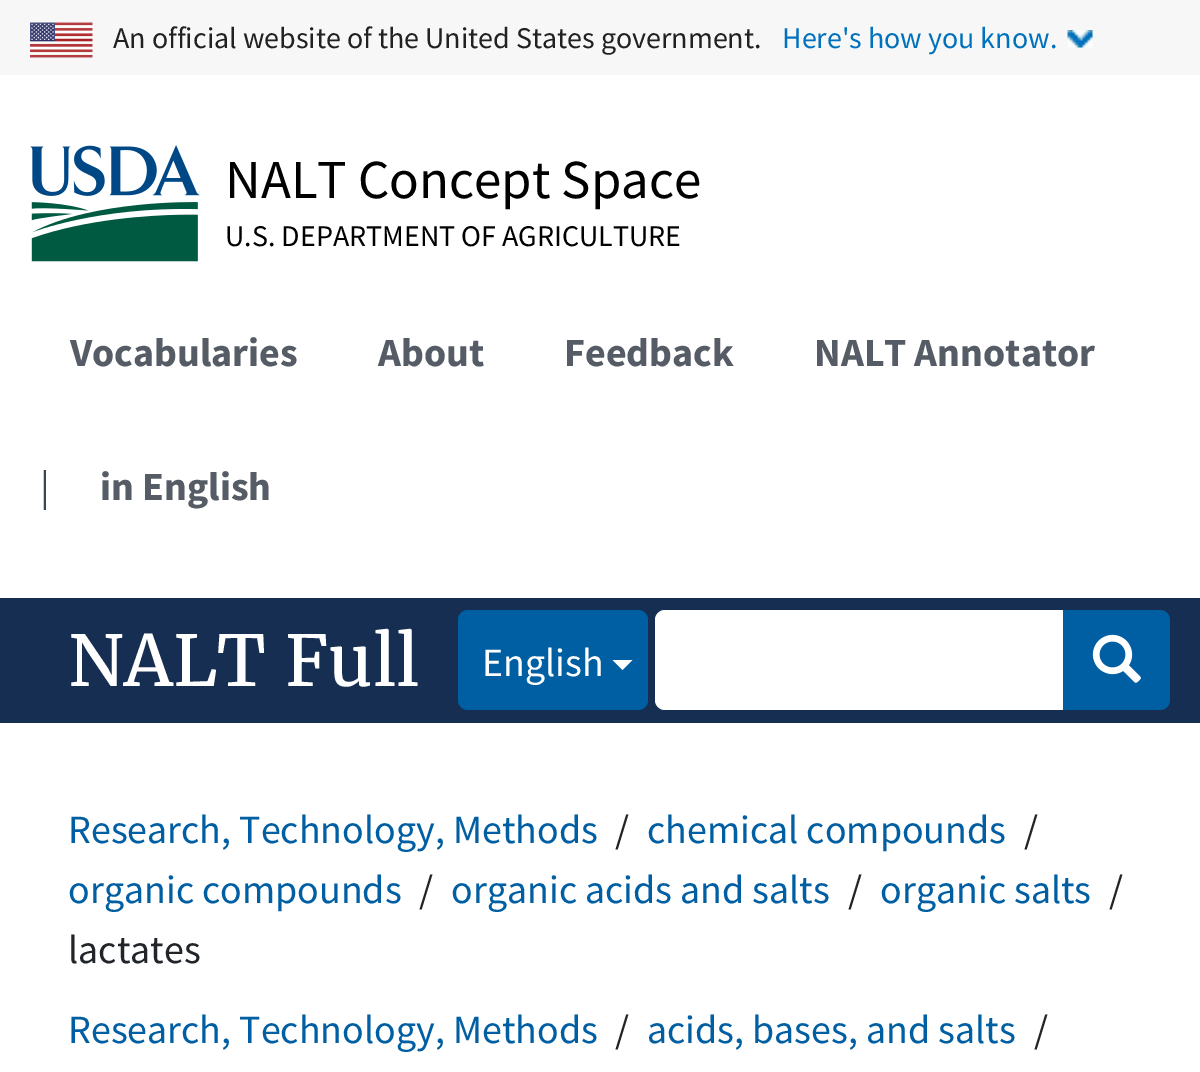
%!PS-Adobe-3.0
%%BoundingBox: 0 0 1200 1072
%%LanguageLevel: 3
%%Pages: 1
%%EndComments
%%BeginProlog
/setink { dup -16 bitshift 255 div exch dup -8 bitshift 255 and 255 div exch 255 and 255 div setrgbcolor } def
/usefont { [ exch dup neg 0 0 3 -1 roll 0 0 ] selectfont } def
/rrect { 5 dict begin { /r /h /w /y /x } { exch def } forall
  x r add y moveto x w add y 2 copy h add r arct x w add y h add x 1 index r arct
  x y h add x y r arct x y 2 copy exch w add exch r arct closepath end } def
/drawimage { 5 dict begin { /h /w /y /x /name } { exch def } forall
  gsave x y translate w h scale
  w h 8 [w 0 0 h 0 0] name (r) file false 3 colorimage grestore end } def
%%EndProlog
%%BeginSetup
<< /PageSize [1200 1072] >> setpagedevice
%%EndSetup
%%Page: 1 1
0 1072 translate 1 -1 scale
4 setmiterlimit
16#FFFFFF setink
0 0 1200 1072 rectfill
16#F7F7F7 setink
0 0 1200 75 rectfill
(img1.raw) 30 22 63 36 drawimage
/SourceSansPro-Regular 30 usefont
16#212121 setink
113 48 moveto (An official website of the United States government.) show
(img2.raw) 1067 30 26 18 drawimage
16#0071BC setink
782 48 moveto (Here's how you know.) show
(img3.raw) 30 145 170 117 drawimage
/SourceSansPro-Regular 55 usefont
16#000000 setink
225 198 moveto (NALT Concept Space) show
/SourceSansPro-Regular 30 usefont
225 246 moveto (U.S. DEPARTMENT OF AGRICULTURE) show
/SourceSansPro-Bold 40 usefont
16#565C65 setink
[
    [(Vocabularies) 70 366]
    [(About) 378 366]
    [(Feedback) 564 366]
    [(NALT Annotator) 814 366]
] { aload pop moveto show } forall
/SourceSansPro-Regular 40 usefont
16#394554 setink
40 500 moveto (|) show
/SourceSansPro-Bold 40 usefont
16#565C65 setink
100 500 moveto (in English) show
16#162E51 setink
0 598 1200 125 rectfill
/Merriweather-Regular 70 usefont
16#FFFFFF setink
68 686 moveto (NALT Full) show
16#005EA2 setink
458 610 190 100 10 rrect fill
/SourceSansPro-Regular 40 usefont
16#FFFFFF setink
482 676 moveto (English) show
612.5 660 moveto 632.5 660 lineto 622.5 670 lineto closepath fill
665 610 moveto 1065 610 lineto 1065 710 lineto 665 710 lineto 659.5 710 655 705.5 655 700 curveto 655 620 lineto 655 614.5 659.5 610 665 610 curveto closepath fill
16#005EA2 setink
1063 610 moveto 1160 610 lineto 1165.5 610 1170 614.5 1170 620 curveto 1170 700 lineto 1170 705.5 1165.5 710 1160 710 curveto 1063 710 lineto closepath fill
(img4.raw) 1092 634 49 49 drawimage
68 843 moveto (Research, Technology, Methods) show
16#212529 setink
615 843 moveto (/) show
16#005EA2 setink
647 843 moveto (chemical compounds) show
16#212529 setink
1024 843 moveto (/) show
16#005EA2 setink
68 903 moveto (organic compounds) show
16#212529 setink
419 903 moveto (/) show
16#005EA2 setink
451 903 moveto (organic acids and salts) show
16#212529 setink
848 903 moveto (/) show
16#005EA2 setink
880 903 moveto (organic salts) show
16#212529 setink
1109 903 moveto (/) show
68 963 moveto (lactates) show
16#005EA2 setink
68 1043 moveto (Research, Technology, Methods) show
16#212529 setink
615 1043 moveto (/) show
16#005EA2 setink
647 1043 moveto (acids, bases, and salts) show
16#212529 setink
1034 1043 moveto (/) show
showpage
%%EOF
